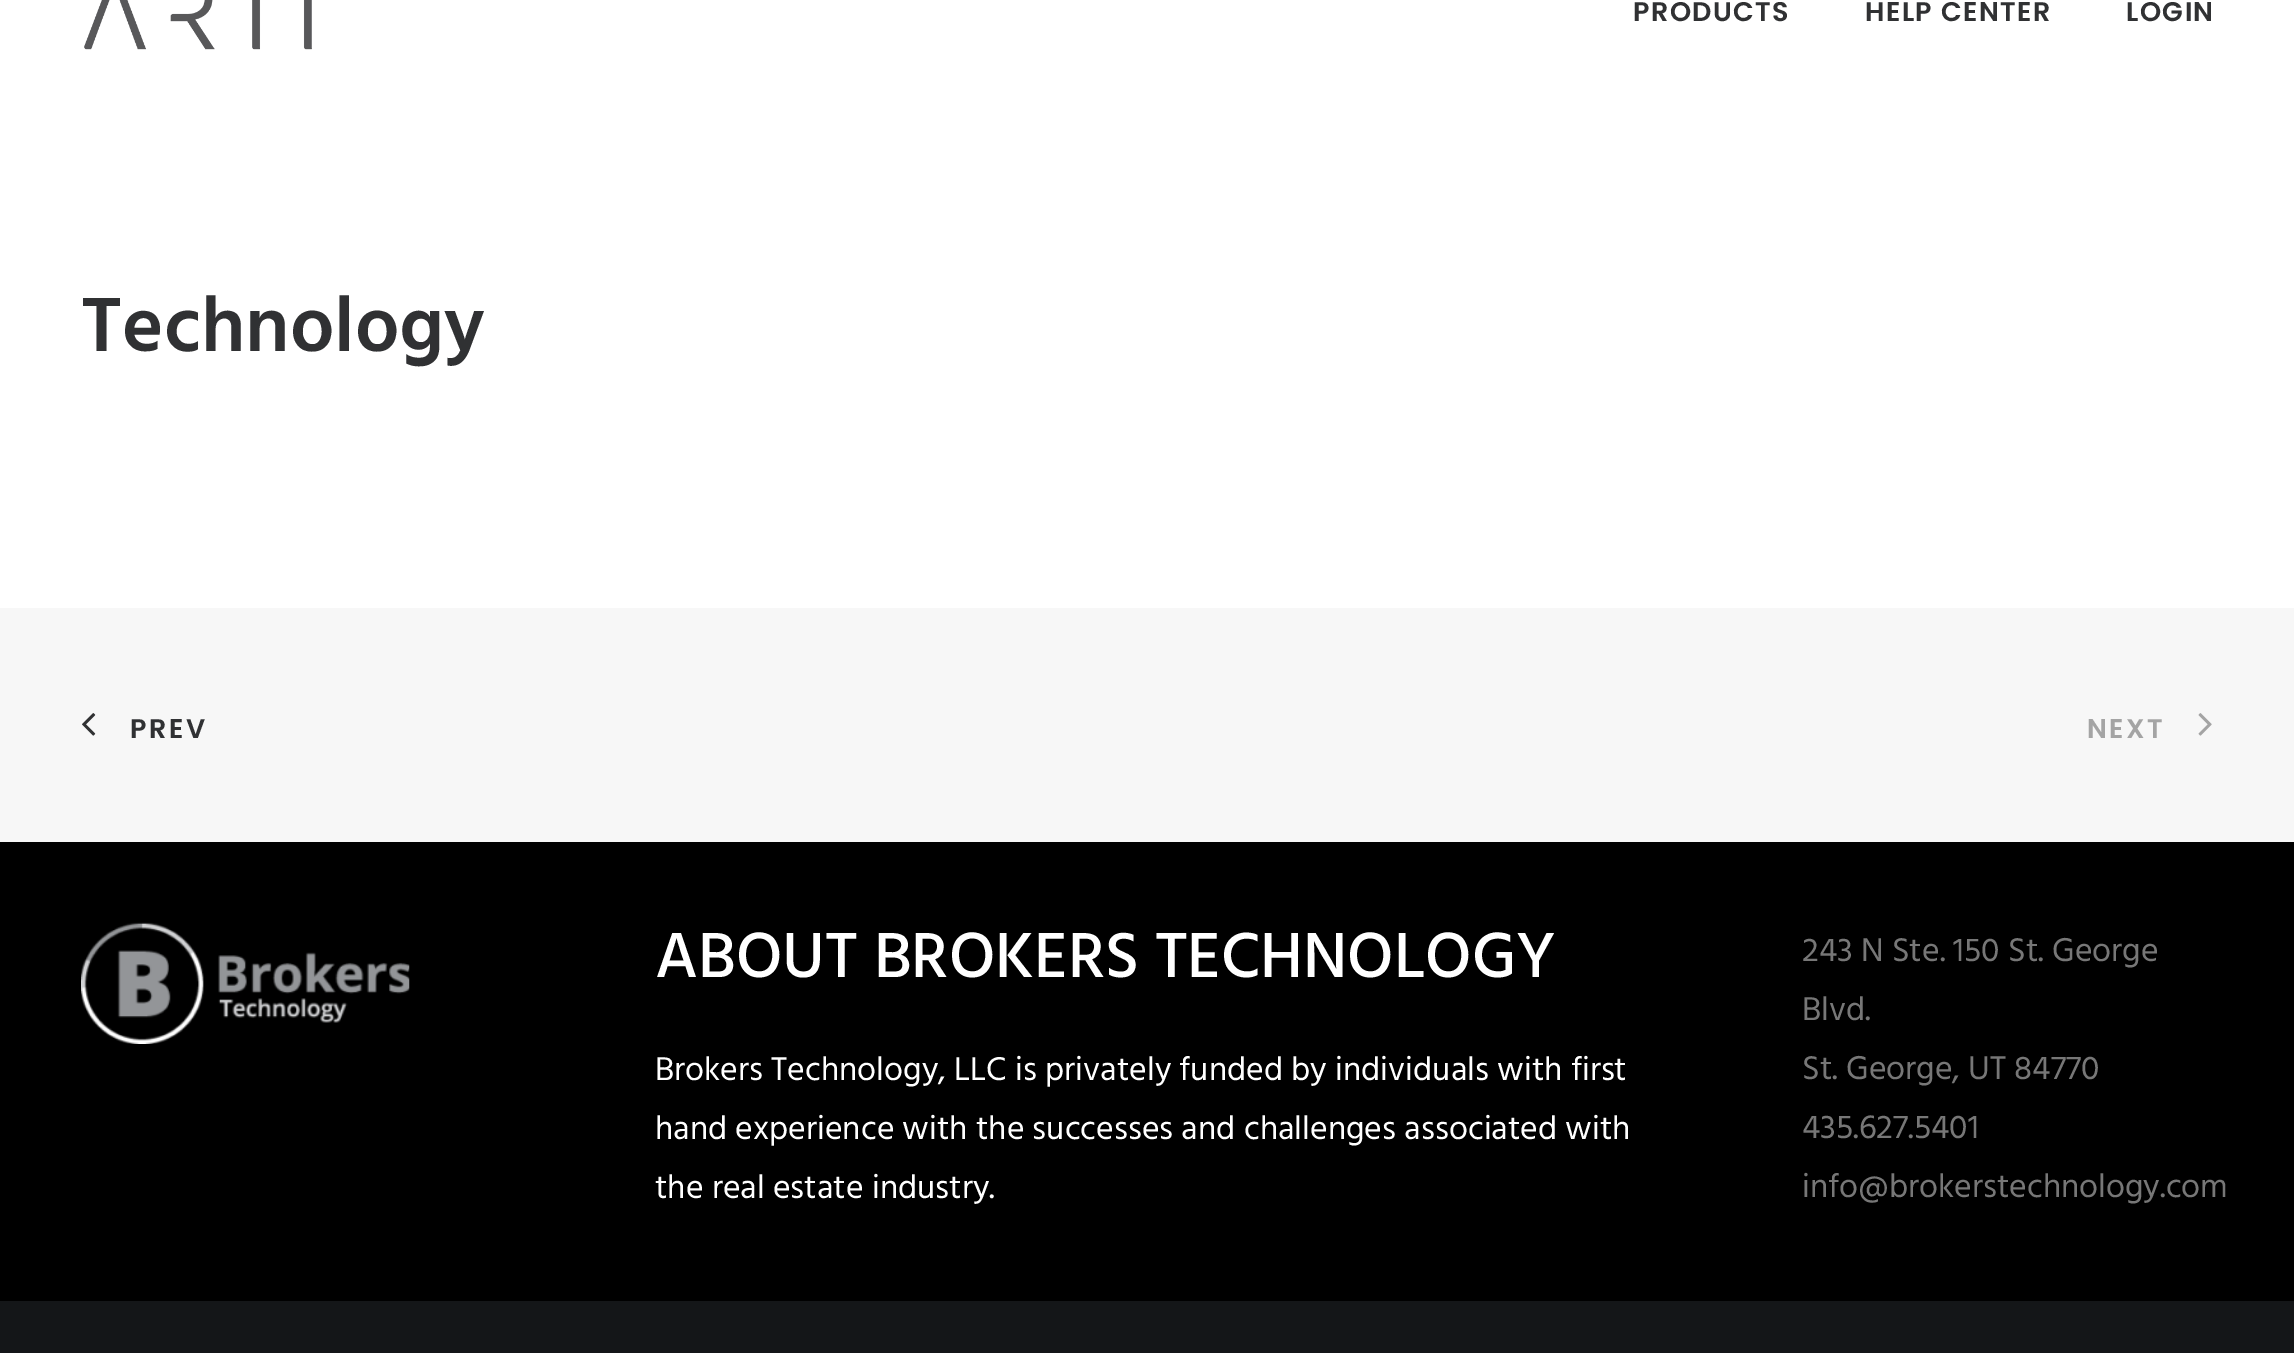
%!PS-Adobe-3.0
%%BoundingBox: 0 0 2294 1353
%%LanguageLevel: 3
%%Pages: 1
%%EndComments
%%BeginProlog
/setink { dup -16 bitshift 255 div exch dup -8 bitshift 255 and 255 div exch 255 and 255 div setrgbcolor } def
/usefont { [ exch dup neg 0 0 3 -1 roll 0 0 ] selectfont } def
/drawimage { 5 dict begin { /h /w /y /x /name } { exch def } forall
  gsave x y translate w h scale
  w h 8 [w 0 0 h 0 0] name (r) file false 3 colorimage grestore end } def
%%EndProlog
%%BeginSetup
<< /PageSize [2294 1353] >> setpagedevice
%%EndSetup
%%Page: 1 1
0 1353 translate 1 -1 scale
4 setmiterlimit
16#141618 setink
0 0 2294 1353 rectfill
16#FFFFFF setink
0 0 2294 608 rectfill
(img1.raw) 84 0 228 50 drawimage
/Poppins-SemiBold 27 usefont
16#303133 setink
1633 21 moveto 1.4 0 (PRODUCTS) ashow
1865 21 moveto 1.4 0 (HELP CENTER) ashow
2126 21 moveto 1.4 0 (LOGIN) ashow
/Hind-SemiBold 78.75 usefont
81 351 moveto (Technology) show
16#F7F7F7 setink
0 608 2294 234 rectfill
(img2.raw) 82 713 14 23 drawimage
/Poppins-SemiBold 27 usefont
16#303133 setink
130 738 moveto 2.5 0 (PREV) ashow
16#A4A4A4 setink
2087 738 moveto 2.5 0 (NEXT) ashow
(img3.raw) 2198 713 14 23 drawimage
16#000000 setink
0 842 2294 459 rectfill
(img4.raw) 81 922 329 122 drawimage
/Hind-Medium 65.25 usefont
16#FFFFFF setink
655 977 moveto (ABOUT BROKERS TECHNOLOGY) show
/Hind-Regular 33.75 usefont
[
    [(Brokers Technology, LLC is privately funded by individuals with first) 655 1080]
    [(hand experience with the successes and challenges associated with) 655 1139]
    [(the real estate industry.) 655 1198]
] { aload pop moveto show } forall
16#777777 setink
[
    [(243 N Ste. 150 St. George) 1802 961]
    [(Blvd.) 1802 1020]
    [(St. George, UT 84770) 1802 1079]
    [(435.627.5401) 1802 1138]
    [(info@brokerstechnology.com) 1802 1197]
] { aload pop moveto show } forall
showpage
%%EOF
